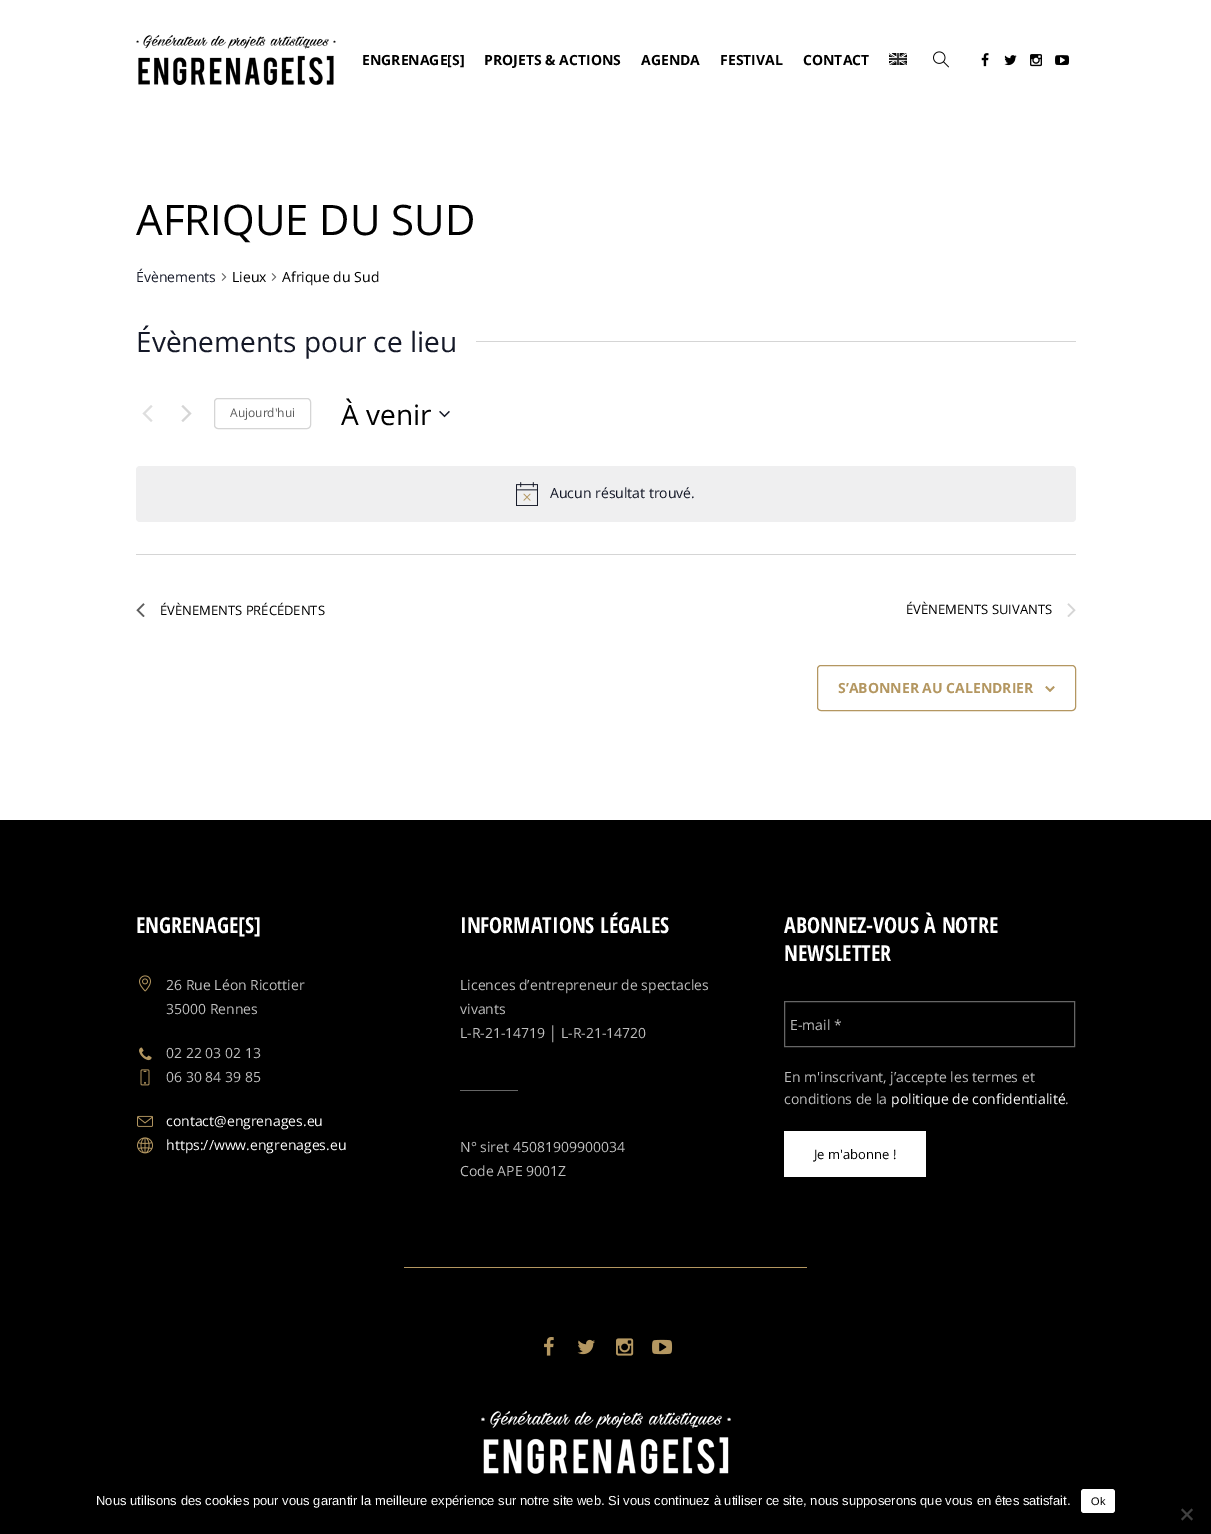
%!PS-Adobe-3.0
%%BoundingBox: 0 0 1211 1534
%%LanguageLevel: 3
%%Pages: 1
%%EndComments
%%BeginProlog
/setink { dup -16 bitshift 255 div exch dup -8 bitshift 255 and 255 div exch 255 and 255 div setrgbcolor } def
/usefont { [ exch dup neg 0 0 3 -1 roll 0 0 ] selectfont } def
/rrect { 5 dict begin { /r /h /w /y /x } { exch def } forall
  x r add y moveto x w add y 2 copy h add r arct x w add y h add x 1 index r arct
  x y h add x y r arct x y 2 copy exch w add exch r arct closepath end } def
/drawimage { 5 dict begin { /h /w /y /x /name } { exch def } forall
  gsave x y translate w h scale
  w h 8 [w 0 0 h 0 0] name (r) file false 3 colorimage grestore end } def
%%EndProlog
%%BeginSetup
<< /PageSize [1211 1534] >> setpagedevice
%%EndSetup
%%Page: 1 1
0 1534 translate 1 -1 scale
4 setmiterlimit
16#FFFFFF setink
0 0 1211 1534 rectfill
(img1.raw) 136 35 200 50 drawimage
/OpenSans-Bold 14 usefont
16#000000 setink
[
    [(ENGRENAGE[S]) 362 65]
    [(PROJETS & ACTIONS) 484 65]
    [(AGENDA) 641 65]
    [(FESTIVAL) 720 65]
    [(CONTACT) 803 65]
] { aload pop moveto show } forall
(img2.raw) 889 53 18 12 drawimage
(img3.raw) 933 51 16 17 drawimage
(img4.raw) 981 53 8 14 drawimage
(img5.raw) 1004 55 13 11 drawimage
(img6.raw) 1030 54 12 13 drawimage
(img7.raw) 1055 55 15 11 drawimage
/OpenSans-Regular 42 usefont
136 235 moveto (AFRIQUE DU SUD) show
/OpenSans-Regular 14 usefont
16#141827 setink
136 282 moveto (Évènements) show
(img8.raw) 221 273 6 8 drawimage
16#000000 setink
232 282 moveto (Lieux) show
(img8.raw) 271 273 6 8 drawimage
282 282 moveto (Afrique du Sud) show
/OpenSans-Regular 28 usefont
16#141827 setink
136 352 moveto (Évènements pour ce lieu) show
16#D5D5D5 setink
476 341 600 1 rectfill
(img9.raw) 142 405 11 17 drawimage
(img10.raw) 181 405 11 17 drawimage
214.5 398.5 96 30 3.5 rrect stroke
/OpenSans-Regular 12 usefont
16#5D5D5D setink
230 417 moveto (Aujourd'hui) show
/OpenSans-Regular 28 usefont
16#000000 setink
341 425 moveto (À venir) show
(img11.raw) 439 410 11 8 drawimage
16#EFEFF0 setink
136 466 940 56 4 rrect fill
(img12.raw) 516 482 22 24 drawimage
/OpenSans-Regular 14 usefont
16#141827 setink
550 498 moveto (Aucun résultat trouvé.) show
16#D5D5D5 setink
136 554 940 1 rectfill
(img13.raw) 136 603 9 14 drawimage
/OpenSans-Regular 13 usefont
16#000000 setink
160 615 moveto (ÉVÈNEMENTS PRÉCÉDENTS) show
906 614 moveto (ÉVÈNEMENTS SUIVANTS) show
(img14.raw) 1067 603 9 14 drawimage
16#B49761 setink
817.5 665.5 258 45 3.5 rrect stroke
/OpenSans-Bold 14 usefont
838 693 moveto (S’ABONNER AU CALENDRIER) show
(img15.raw) 1045 686 10 6 drawimage
16#000000 setink
0 820 1211 714 rectfill
/OpenSansCondensed-Bold 22 usefont
16#FFFFFF setink
136 933 moveto (ENGRENAGE[S]) show
(img16.raw) 139 975 12 17 drawimage
/OpenSans-Regular 14 usefont
16#BFBFBF setink
166 990 moveto (26 Rue Léon Ricottier) show
166 1014 moveto (35000 Rennes) show
(img17.raw) 139 1047 13 14 drawimage
166 1058 moveto (02 22 03 02 13) show
(img18.raw) 140 1069 10 17 drawimage
166 1082 moveto (06 30 84 39 85) show
(img19.raw) 137 1115 16 12 drawimage
16#FFFFFF setink
166 1126 moveto (contact@engrenages.eu) show
(img20.raw) 137 1137 17 17 drawimage
166 1150 moveto (https://www.engrenages.eu) show
/OpenSansCondensed-Bold 22 usefont
460 933 moveto (INFORMATIONS LÉGALES) show
/OpenSans-Regular 14 usefont
16#BFBFBF setink
[
    [(Licences d’entrepreneur de spectacles) 460 990]
    [(vivants) 460 1014]
    [(L-R-21-14719) 460 1038]
] { aload pop moveto show } forall
/LiberationSans-Regular 14 usefont
549 1038 moveto (│) show
/OpenSans-Regular 14 usefont
561 1038 moveto (L-R-21-14720) show
16#666666 setink
460 1090 58 1 rectfill
16#BFBFBF setink
460 1152 moveto (N° siret 45081909900034) show
460 1176 moveto (Code APE 9001Z) show
/OpenSansCondensed-Bold 22 usefont
16#FFFFFF setink
784 933 moveto (ABONNEZ-VOUS À NOTRE) show
784 961 moveto (NEWSLETTER) show
16#666666 setink
784.5 1001.5 290 45 rectstroke
/OpenSans-Regular 14 usefont
16#BFBFBF setink
[
    [(E-mail *) 790 1030]
    [(En m'inscrivant, j’accepte les termes et) 784 1082]
    [(conditions de la) 784 1104]
] { aload pop moveto show } forall
16#FFFFFF setink
891 1104 moveto (politique de confidentialité) show
16#BFBFBF setink
1065 1104 moveto (.) show
16#FFFFFF setink
784 1131 142 46 rectfill
/OpenSans-Regular 13 usefont
16#000000 setink
814 1159 moveto (Je m'abonne !) show
16#B49761 setink
404 1267 403 1 rectfill
(img21.raw) 544 1337 10 19 drawimage
(img22.raw) 577 1339 18 16 drawimage
(img23.raw) 616 1338 18 18 drawimage
(img24.raw) 652 1339 21 16 drawimage
(img25.raw) 481 1411 250 63 drawimage
/LiberationSans-Regular 13 usefont
16#FFFFFF setink
96 1505 moveto (Nous utilisons des cookies pour vous garantir la meilleure expérience sur notre site web. Si vous continuez à utiliser ce site, nous supposerons que vous en êtes satisfait.) show
1081 1489 34 24 3 rrect fill
/LiberationSans-Regular 11 usefont
16#000000 setink
1091 1505 moveto (Ok) show
16#404040 setink
1191.5 1508.5 moveto 1193 1510 lineto 1182.5 1520.5 lineto 1181 1519 lineto closepath fill
1181 1510 moveto 1182.5 1508.5 lineto 1193 1519 lineto 1191.5 1520.5 lineto closepath fill
showpage
%%EOF
